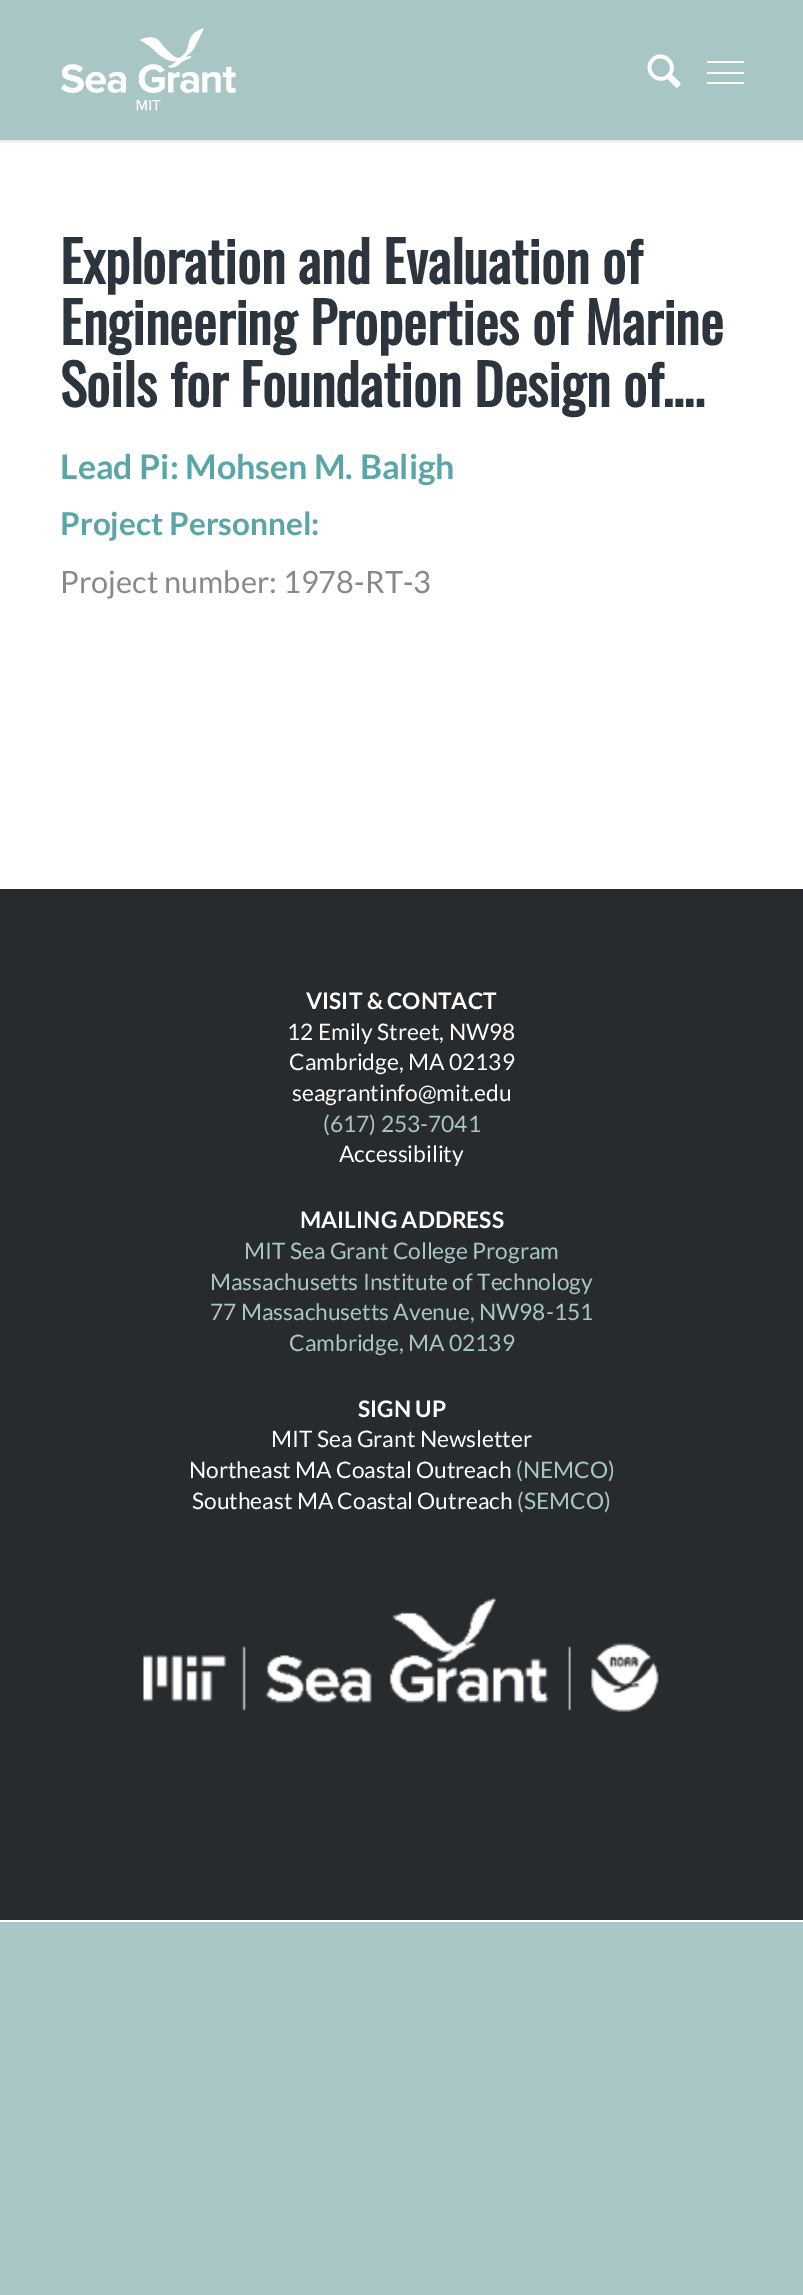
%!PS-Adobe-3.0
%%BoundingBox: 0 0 803 2295
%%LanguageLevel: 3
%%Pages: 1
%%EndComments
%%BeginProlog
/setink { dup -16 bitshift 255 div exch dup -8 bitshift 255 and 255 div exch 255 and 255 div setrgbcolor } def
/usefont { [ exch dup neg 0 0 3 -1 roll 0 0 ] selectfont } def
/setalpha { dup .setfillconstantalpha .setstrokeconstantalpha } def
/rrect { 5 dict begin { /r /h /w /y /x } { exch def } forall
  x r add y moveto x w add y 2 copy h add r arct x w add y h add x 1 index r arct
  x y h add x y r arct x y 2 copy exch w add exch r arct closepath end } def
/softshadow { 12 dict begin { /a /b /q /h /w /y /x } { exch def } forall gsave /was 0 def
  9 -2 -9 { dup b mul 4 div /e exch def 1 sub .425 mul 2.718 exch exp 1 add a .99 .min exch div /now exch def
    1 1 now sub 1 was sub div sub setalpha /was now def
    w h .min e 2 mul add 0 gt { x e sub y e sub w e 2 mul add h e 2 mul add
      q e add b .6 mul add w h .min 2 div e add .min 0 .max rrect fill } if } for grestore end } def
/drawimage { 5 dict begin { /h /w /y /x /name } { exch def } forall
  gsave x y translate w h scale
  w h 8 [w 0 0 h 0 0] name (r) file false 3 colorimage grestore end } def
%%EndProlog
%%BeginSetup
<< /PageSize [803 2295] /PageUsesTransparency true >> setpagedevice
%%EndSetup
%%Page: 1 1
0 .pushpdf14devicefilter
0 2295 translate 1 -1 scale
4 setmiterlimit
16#A8C6C5 setink
0 0 803 2295 rectfill
16#FFFFFF setink
0 1920 803 2 rectfill
0 140 803 749 rectfill
16#000000 setink
-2 -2 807 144 0 2 0.1 softshadow
16#A8C6C5 setink
0 0 803 140 rectfill
(img1.raw) 60 28 176 83 drawimage
(img2.raw) 647 54 34 34 drawimage
16#FFFFFF setink
707 72 37 2 1 rrect fill
707 61 37 2 1 rrect fill
707 82 37 2 1 rrect fill
/Oswald-Bold 56 usefont
16#2C353D setink
[
    [(Exploration and Evaluation of) 60 284]
    [(Engineering Properties of Marine) 60 345]
    [(Soils for Foundation Design of….) 60 407]
] { aload pop moveto show } forall
/Lato-Bold 33.9 usefont
16#5AA5A8 setink
60 479 moveto (Lead Pi: Mohsen M. Baligh) show
/Lato-Bold 31.5 usefont
60 535 moveto (Project Personnel:) show
/Lato-Regular 30.75 usefont
16#898989 setink
60 593 moveto (Project number: 1978-RT-3) show
16#282B2E setink
0 889 803 1031 rectfill
/Lato-Bold 22.75 usefont
16#FFFFFF setink
306 1009 moveto (VISIT & CONTACT) show
/Lato-Regular 22.75 usefont
[
    [(12 Emily Street, NW98) 287 1040]
    [(Cambridge, MA 02139) 289 1070]
    [(seagrantinfo@mit.edu) 292 1101]
] { aload pop moveto show } forall
16#A8C6C5 setink
323 1132 moveto (\(617\) 253-7041) show
16#FFFFFF setink
339 1162 moveto (Accessibility) show
/Lato-Bold 22.75 usefont
300 1228 moveto (MAILING ADDRESS) show
/Lato-Regular 22.75 usefont
16#A8C6C5 setink
[
    [(MIT Sea Grant College Program) 244 1259]
    [(Massachusetts Institute of Technology) 210 1290]
    [(77 Massachusetts Avenue, NW98-151) 210 1320]
    [(Cambridge, MA 02139) 289 1351]
] { aload pop moveto show } forall
/Lato-Bold 22.75 usefont
16#FFFFFF setink
358 1417 moveto (SIGN UP) show
/Lato-Regular 22.75 usefont
271 1447 moveto (MIT Sea Grant Newsletter) show
189 1478 moveto (Northeast MA Coastal Outreach) show
16#A8C6C5 setink
516 1478 moveto (\(NEMCO\)) show
16#FFFFFF setink
192 1509 moveto (Southeast MA Coastal Outreach) show
16#A8C6C5 setink
517 1509 moveto (\(SEMCO\)) show
(img3.raw) 143 1597 516 115 drawimage
.poppdf14devicefilter showpage
%%EOF
